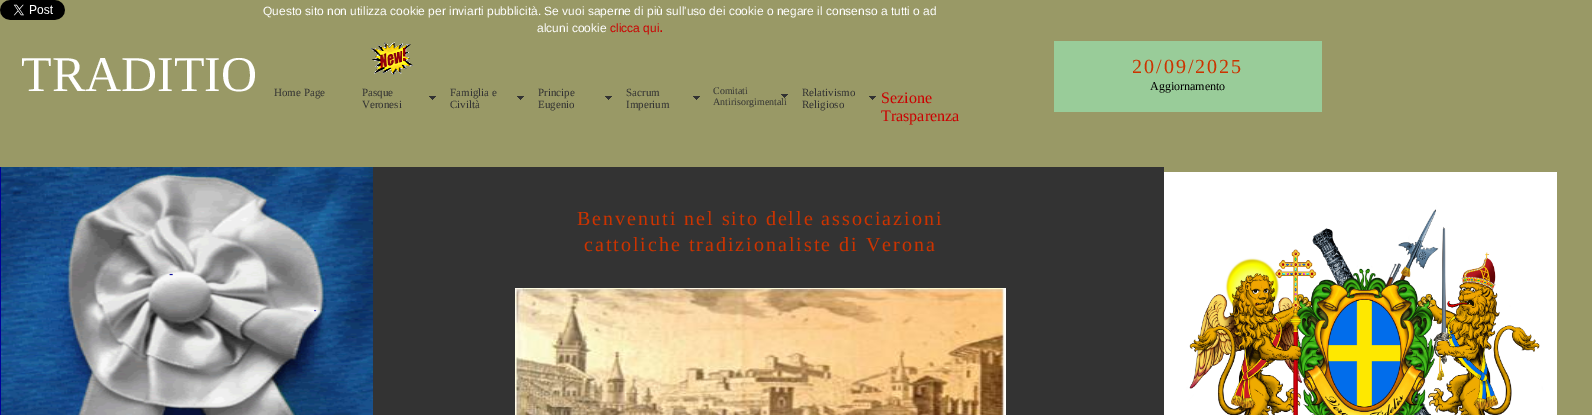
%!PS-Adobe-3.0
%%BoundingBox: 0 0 1592 415
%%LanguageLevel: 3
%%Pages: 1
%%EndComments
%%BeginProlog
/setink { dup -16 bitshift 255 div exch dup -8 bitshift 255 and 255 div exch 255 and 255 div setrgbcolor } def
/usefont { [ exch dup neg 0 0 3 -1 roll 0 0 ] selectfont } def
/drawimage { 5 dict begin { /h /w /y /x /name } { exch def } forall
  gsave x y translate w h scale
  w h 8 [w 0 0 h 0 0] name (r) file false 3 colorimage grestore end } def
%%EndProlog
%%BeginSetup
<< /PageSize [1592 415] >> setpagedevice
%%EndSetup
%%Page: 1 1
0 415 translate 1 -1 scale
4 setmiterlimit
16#999966 setink
0 0 1592 415 rectfill
(img1.raw) 0 0 65 20 drawimage
/LiberationSans-Regular 12 usefont
16#FFFFFF setink
263 15 moveto (Questo sito non utilizza cookie per inviarti pubblicità. Se vuoi saperne di più sull'uso dei cookie o negare il consenso a tutti o ad) show
537 32 moveto (alcuni cookie) show
16#CC0000 setink
610 32 moveto (clicca qui) show
/LiberationSans-Regular 16 usefont
659 32 moveto (.) show
16#000099 setink
0 167 317 248 rectfill
(img2.raw) 1 167 372 248 drawimage
16#333333 setink
373 167 791 248 rectfill
/LiberationSerif-Regular 20 usefont
16#CC3300 setink
577 225 moveto 2 0 (Benvenuti nel sito delle associazioni) ashow
584 251 moveto 2 0 (cattoliche tradizionaliste di Verona) ashow
(img3.raw) 515 288 491 127 drawimage
(img4.raw) 1164 172 393 243 drawimage
/LiberationSerif-Regular 50 usefont
16#FFFFFF setink
21 91 moveto (TRADITIO) show
(img5.raw) 371 42 42 33 drawimage
16#99CC99 setink
1054 41 268 71 rectfill
/LiberationSerif-Regular 20 usefont
16#CC3300 setink
1132 73 moveto 2 0 (20/09/2025) ashow
/LiberationSerif-Regular 12 usefont
16#000000 setink
1150 90 moveto (Aggiornamento) show
/LiberationSerif-Regular 11 usefont
16#333333 setink
274 96 moveto (Home Page) show
(img6.raw) 429 96 7 4 drawimage
362 96 moveto (Pasque) show
362 108 moveto (Veronesi) show
(img6.raw) 517 96 7 4 drawimage
450 96 moveto (Famiglia e) show
450 108 moveto (Civiltà) show
(img6.raw) 605 96 7 4 drawimage
538 96 moveto (Principe) show
538 108 moveto (Eugenio) show
(img6.raw) 693 96 7 4 drawimage
626 96 moveto (Sacrum) show
626 108 moveto (Imperium) show
(img6.raw) 781 94 7 4 drawimage
/LiberationSerif-Regular 10 usefont
713 94 moveto (Comitati) show
713 105 moveto (Antirisorgimentali) show
(img6.raw) 869 96 7 4 drawimage
/LiberationSerif-Regular 11 usefont
802 96 moveto (Relativismo) show
802 108 moveto (Religioso) show
/LiberationSerif-Regular 16 usefont
16#CC0000 setink
881 103 moveto (Sezione) show
881 121 moveto (Trasparenza) show
showpage
%%EOF
